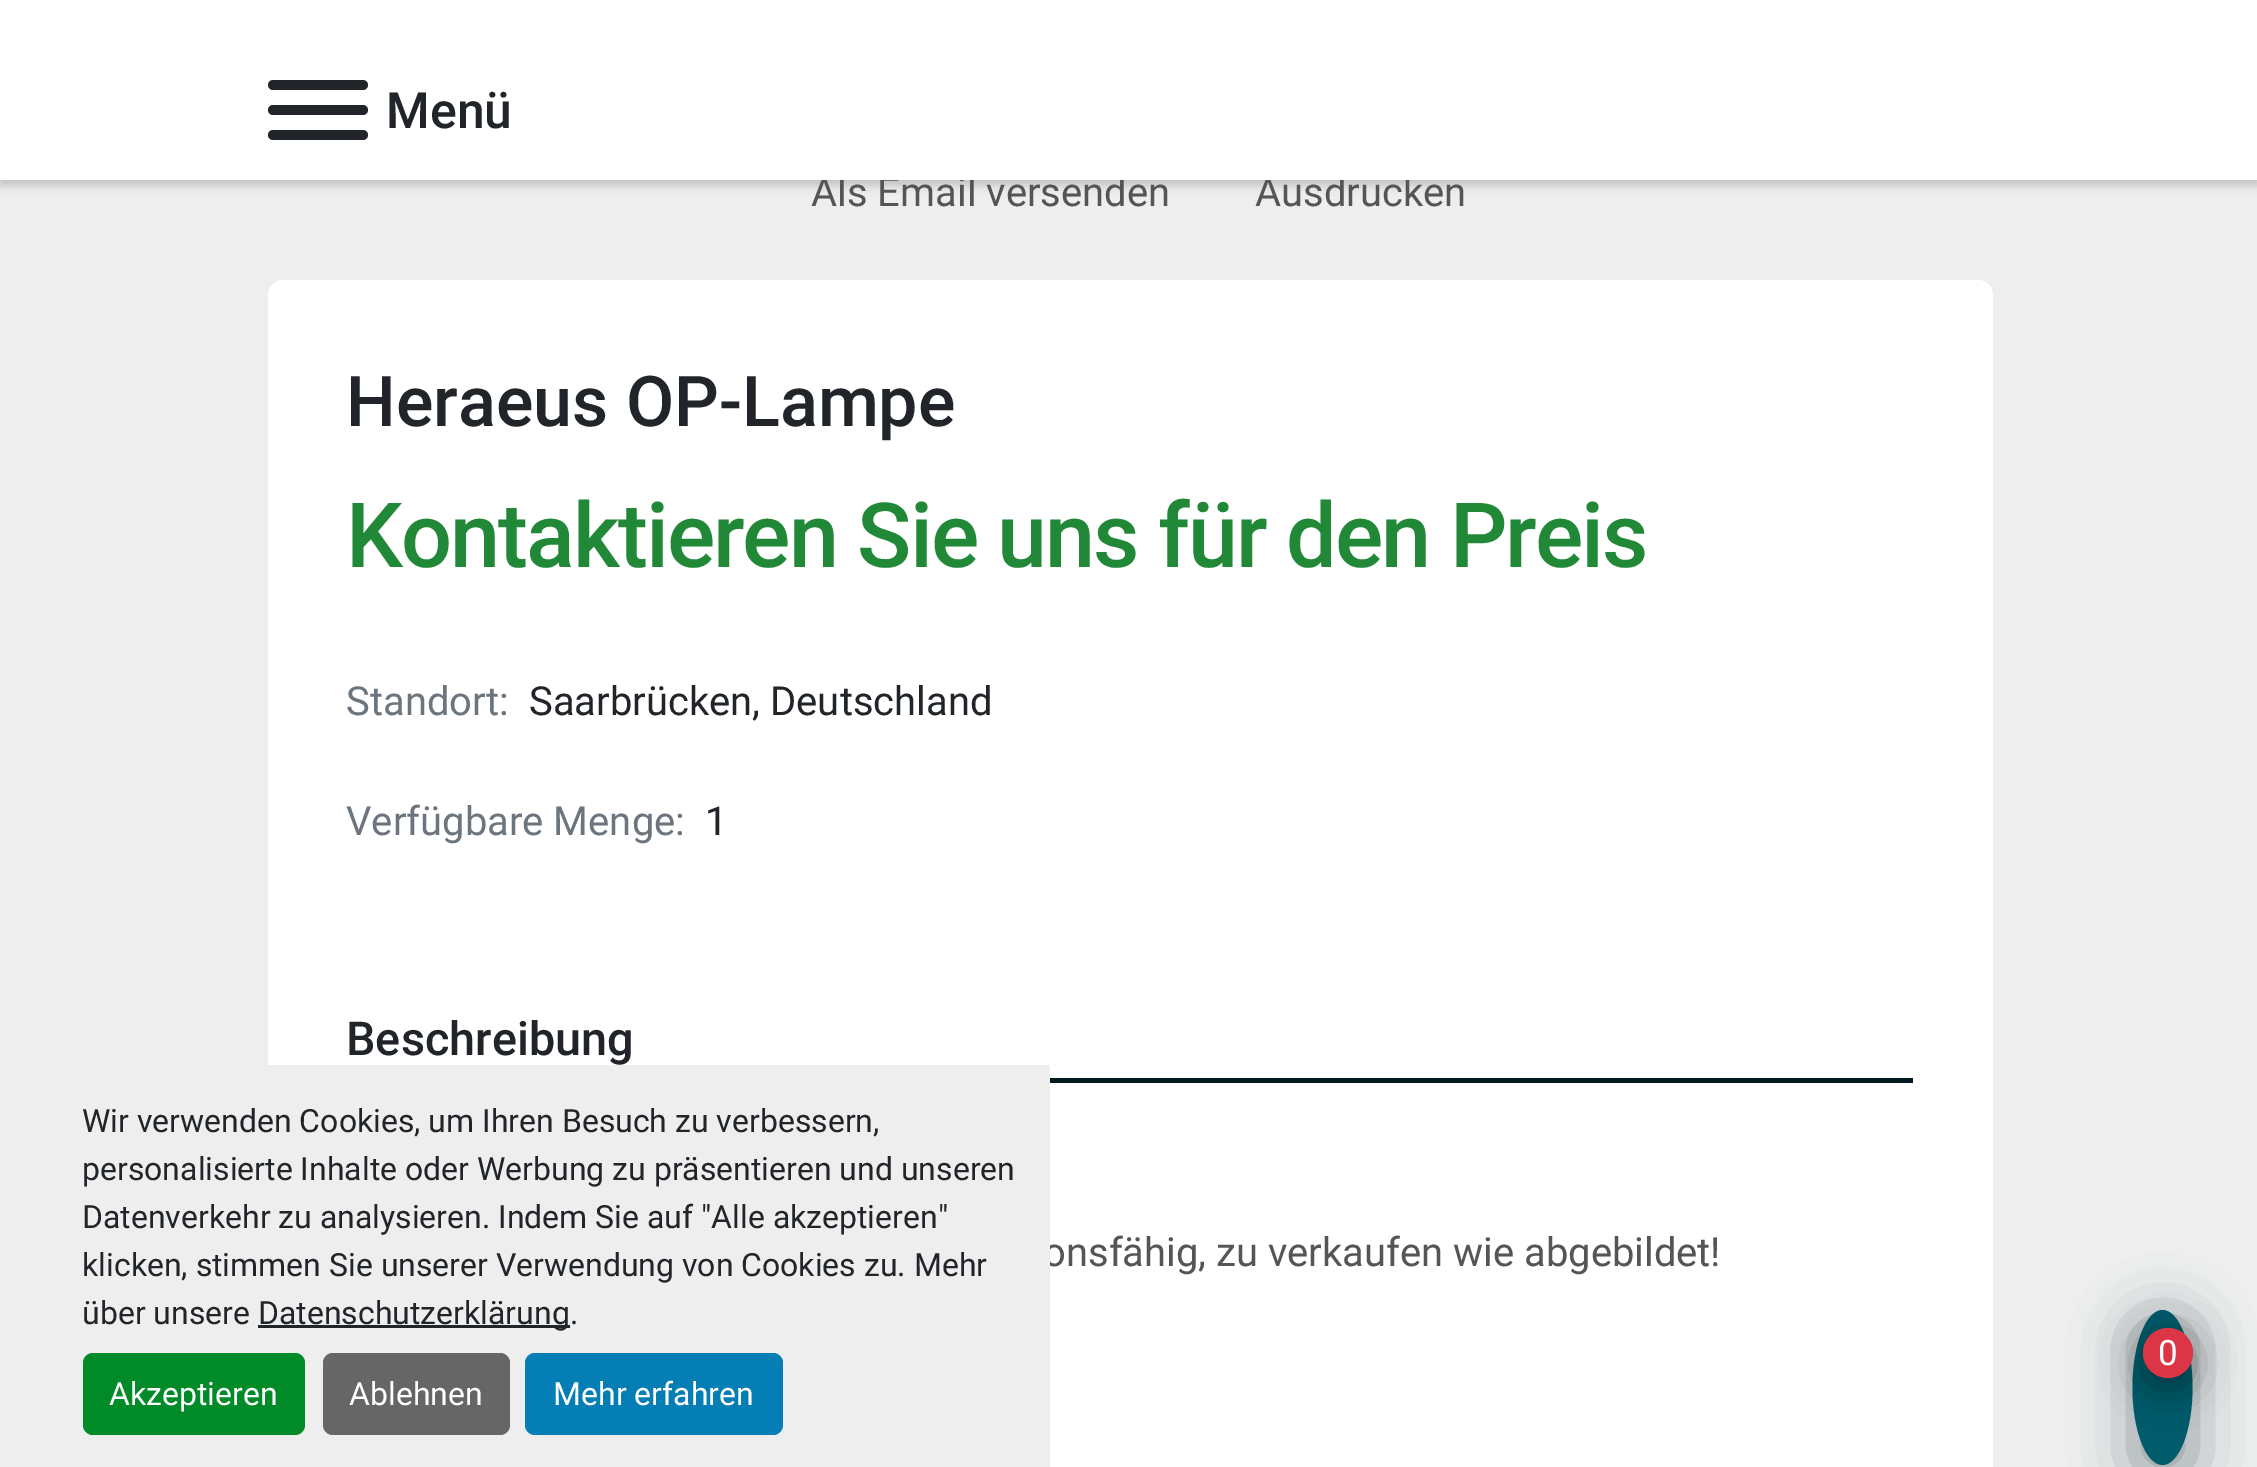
%!PS-Adobe-3.0
%%BoundingBox: 0 0 2257 1467
%%LanguageLevel: 3
%%Pages: 1
%%EndComments
%%BeginProlog
/setink { dup -16 bitshift 255 div exch dup -8 bitshift 255 and 255 div exch 255 and 255 div setrgbcolor } def
/usefont { [ exch dup neg 0 0 3 -1 roll 0 0 ] selectfont } def
/setalpha { dup .setfillconstantalpha .setstrokeconstantalpha } def
/disc { newpath 0 360 arc closepath } def
/rrect { 5 dict begin { /r /h /w /y /x } { exch def } forall
  x r add y moveto x w add y 2 copy h add r arct x w add y h add x 1 index r arct
  x y h add x y r arct x y 2 copy exch w add exch r arct closepath end } def
/softshadow { 12 dict begin { /a /b /q /h /w /y /x } { exch def } forall gsave /was 0 def
  9 -2 -9 { dup b mul 4 div /e exch def 1 sub .425 mul 2.718 exch exp 1 add a .99 .min exch div /now exch def
    1 1 now sub 1 was sub div sub setalpha /was now def
    w h .min e 2 mul add 0 gt { x e sub y e sub w e 2 mul add h e 2 mul add
      q e add b .6 mul add w h .min 2 div e add .min 0 .max rrect fill } if } for grestore end } def
%%EndProlog
%%BeginSetup
<< /PageSize [2257 1467] /PageUsesTransparency true >> setpagedevice
%%EndSetup
%%Page: 1 1
0 .pushpdf14devicefilter
0 1467 translate 1 -1 scale
4 setmiterlimit
16#EEEEEE setink
0 0 2257 1467 rectfill
16#000000 setink
0 5 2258 180 0 5 0.2 softshadow
/Roboto-Regular 40 usefont
16#555555 setink
811 206 moveto (Als Email versenden) show
1255 206 moveto (Ausdrucken) show
16#FFFFFF setink
0 0 2257 180 rectfill
16#212529 setink
268 105 100 10 5 rrect fill
268 80 100 10 5 rrect fill
268 130 100 10 5 rrect fill
/Roboto-Medium 50 usefont
386 128 moveto (Menü) show
16#FFFFFF setink
268 280 1725 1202 15 rrect fill
/Roboto-Medium 70 usefont
16#212529 setink
346 426 moveto (Heraeus OP-Lampe) show
/Roboto-Medium 90 usefont
16#218838 setink
346 567 moveto -2 0 (Kontaktieren Sie uns für den Preis) ashow
/Roboto-Regular 40 usefont
16#6C757D setink
346 715 moveto (Standort:) show
16#212529 setink
529 715 moveto (Saarbrücken, Deutschland) show
16#6C757D setink
346 835 moveto (Verfügbare Menge:) show
16#212529 setink
705 835 moveto (1) show
16#001A1F setink
1050 1078 863 5 rectfill
/Roboto-Medium 46.75 usefont
16#212529 setink
346 1055 moveto (Beschreibung) show
/Roboto-Regular 40 usefont
16#555555 setink
1043 1266 moveto (onsfähig, zu verkaufen wie abgebildet!) show
16#001A1F setink
2133 1320 60 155 30 30 0.4 softshadow
16#005B6B setink
2162.5 1310 moveto 2179 1310 2192.5 1344.5 2192.5 1387.5 curveto 2192.5 1430.5 2179 1465 2162.5 1465 curveto 2146 1465 2132.5 1430.5 2132.5 1387.5 curveto 2132.5 1344.5 2146 1310 2162.5 1310 curveto closepath fill
16#000000 setink
2143 1338 50 50 25 20 0.4 softshadow
16#DC3545 setink
2168 1353 25 disc fill
/Roboto-Regular 35 usefont
16#FFFFFF setink
2158 1365 moveto (0) show
16#EEEEEE setink
268 1065 782 402 rectfill
/Roboto-Regular 32 usefont
16#212529 setink
[
    [(Wir verwenden Cookies, um Ihren Besuch zu verbessern,) 82 1132]
    [(personalisierte Inhalte oder Werbung zu präsentieren und unseren) 82 1180]
    [(Datenverkehr zu analysieren. Indem Sie auf "Alle akzeptieren") 82 1228]
    [(klicken, stimmen Sie unserer Verwendung von Cookies zu. Mehr) 82 1276]
    [(über unsere) 82 1324]
] { aload pop moveto show } forall
258 1325 312 3 rectfill
258 1324 moveto (Datenschutzerklärung.) show
16#008A28 setink
83 1353 222 82 10 rrect fill
16#FFFFFF setink
109 1405 moveto (Akzeptieren) show
16#666666 setink
323 1353 187 82 10 rrect fill
16#FFFFFF setink
349 1405 moveto (Ablehnen) show
16#057EB6 setink
525 1353 258 82 10 rrect fill
16#FFFFFF setink
553 1405 moveto (Mehr erfahren) show
.poppdf14devicefilter showpage
%%EOF
